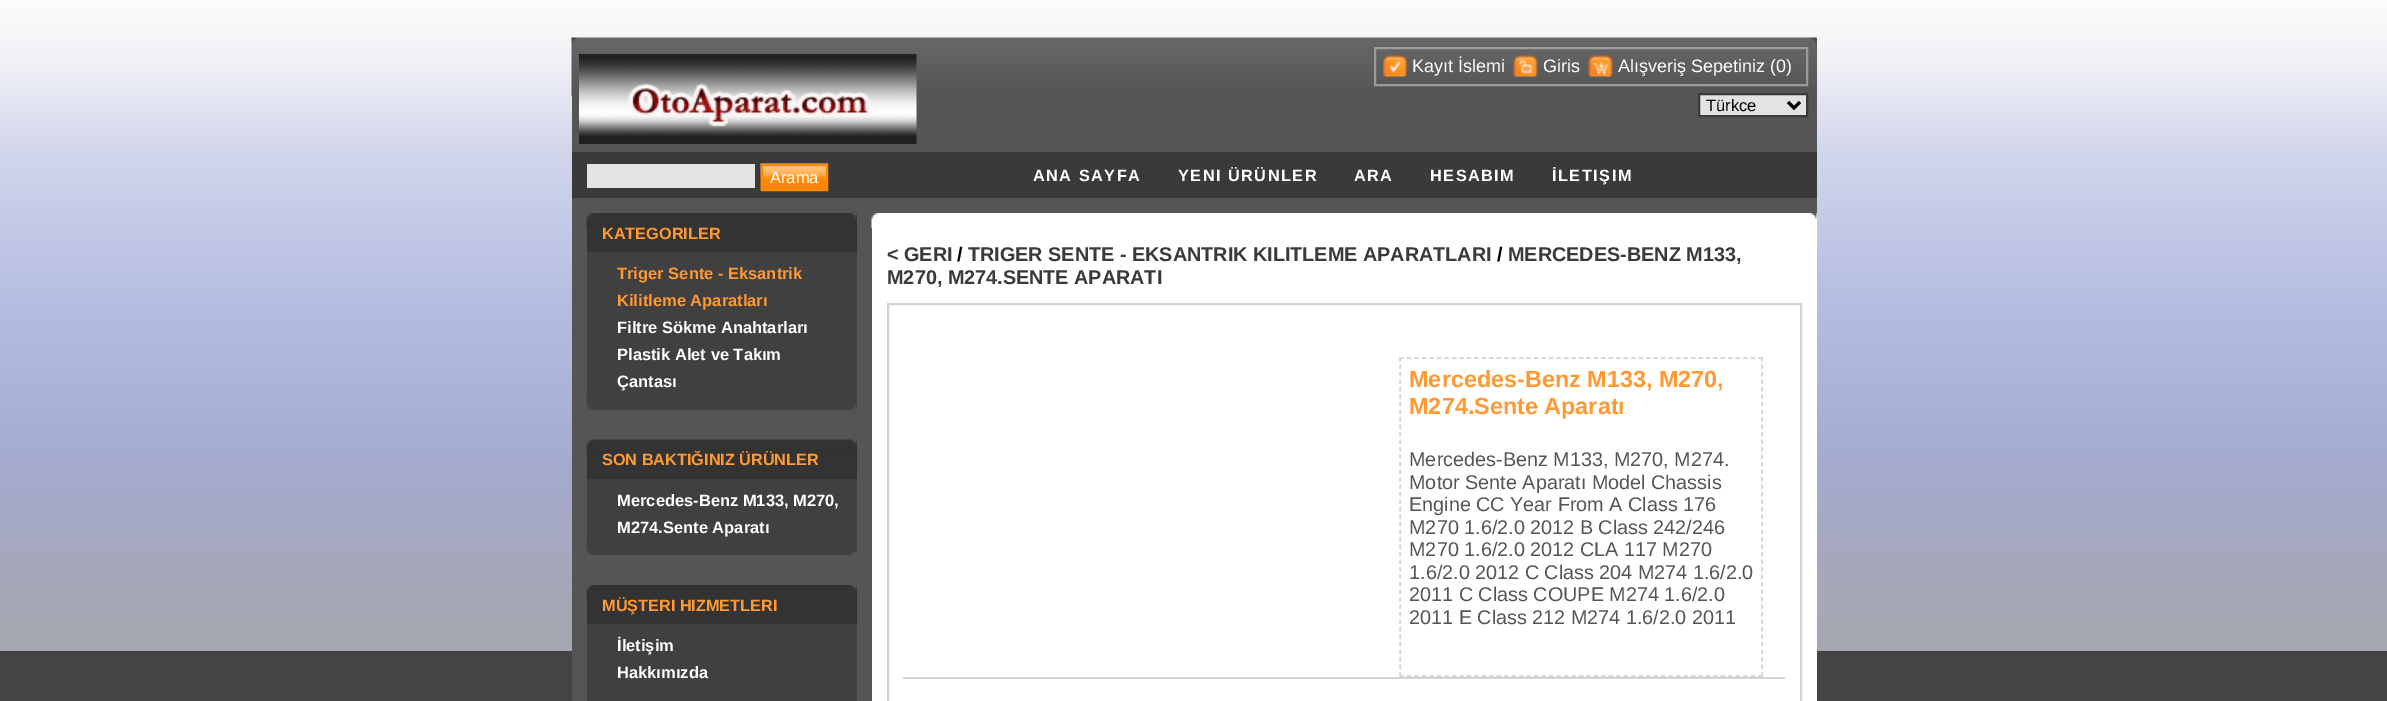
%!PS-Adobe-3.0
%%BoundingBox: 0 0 2387 701
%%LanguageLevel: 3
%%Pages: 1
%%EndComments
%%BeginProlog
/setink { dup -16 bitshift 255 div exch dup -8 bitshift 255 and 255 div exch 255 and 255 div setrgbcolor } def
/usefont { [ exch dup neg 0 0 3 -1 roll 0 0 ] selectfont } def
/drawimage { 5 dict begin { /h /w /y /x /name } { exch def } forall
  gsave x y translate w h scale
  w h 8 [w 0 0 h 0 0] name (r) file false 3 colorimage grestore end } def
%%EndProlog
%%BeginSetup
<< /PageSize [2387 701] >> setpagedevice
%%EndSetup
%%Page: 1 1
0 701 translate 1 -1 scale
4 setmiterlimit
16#444444 setink
0 0 2387 701 rectfill
(img1.raw) 0 0 2387 651 drawimage
16#555555 setink
572 38 1245 663 rectfill
(img2.raw) 571 37 1246 59 drawimage
(img3.raw) 579 54 338 90 drawimage
16#9A9A9A setink
2 setlinewidth
1375 48 432 37 rectstroke
(img4.raw) 1383 55 24 22 drawimage
/LiberationSans-Regular 18 usefont
16#FFFFFF setink
1412 72 moveto (Kayıt İslemi) show
(img5.raw) 1513 55 25 22 drawimage
1543 72 moveto (Giris) show
(img6.raw) 1588 55 25 22 drawimage
1618 72 moveto (Alışveriş Sepetiniz \(0\)) show
16#E3E3E3 setink
1699 94 moveto 1807 94 lineto 1807 116 lineto 1699 116 lineto closepath gsave fill grestore
16#3A3A3A setink
stroke
16#000000 setink
3 setlinewidth
1788 102 moveto 1794 108 lineto 1800 102 lineto stroke
/LiberationSans-Regular 16.5 usefont
1706 111 moveto (Türkce) show
16#3A3A3A setink
572 152 1245 46 rectfill
16#E3E3E3 setink
587 164 168 24 rectfill
(img7.raw) 760 163 68 28 drawimage
16#FF8800 setink
2 setlinewidth
762 165 65 25 rectstroke
16#FFFFFF setink
770 183 moveto (Arama) show
/LiberationSans-Bold 16.25 usefont
1033 181 moveto 1.5 0 (ANA SAYFA) ashow
1178 181 moveto 1.5 0 (YENI ÜRÜNLER) ashow
1354 181 moveto 1.5 0 (ARA) ashow
1430 181 moveto 1.5 0 (HESABIM) ashow
1552 181 moveto 1.5 0 (İLETIŞIM) ashow
16#333333 setink
587 213 270 39 rectfill
(img8.raw) 586 213 271 15 drawimage
16#FF9933 setink
602 239 moveto (KATEGORILER) show
16#404040 setink
587 252 270 158 rectfill
(img9.raw) 586 394 271 16 drawimage
/LiberationSans-Bold 16.5 usefont
16#FF9933 setink
617 279 moveto (Triger Sente - Eksantrik) show
617 306 moveto (Kilitleme Aparatları) show
16#FFFFFF setink
[
    [(Filtre Sökme Anahtarları) 617 333]
    [(Plastik Alet ve Takım) 617 360]
    [(Çantası) 617 387]
] { aload pop moveto show } forall
16#333333 setink
587 440 270 39 rectfill
(img10.raw) 586 439 271 16 drawimage
/LiberationSans-Bold 16.25 usefont
16#FF9933 setink
602 465 moveto (SON BAKTIĞINIZ ÜRÜNLER) show
16#404040 setink
587 479 270 76 rectfill
(img11.raw) 586 540 271 15 drawimage
/LiberationSans-Bold 16.5 usefont
16#FFFFFF setink
617 506 moveto (Mercedes-Benz M133, M270,) show
617 533 moveto (M274.Sente Aparatı) show
16#333333 setink
587 585 270 39 rectfill
(img8.raw) 586 585 271 15 drawimage
/LiberationSans-Bold 16.25 usefont
16#FF9933 setink
602 611 moveto (MÜŞTERI HIZMETLERI) show
16#404040 setink
587 624 270 77 rectfill
/LiberationSans-Bold 16.5 usefont
16#FFFFFF setink
617 651 moveto (İletişim) show
617 678 moveto (Hakkımızda) show
872 213 945 488 rectfill
(img12.raw) 871 213 946 15 drawimage
/LiberationSans-Bold 19.8 usefont
16#3A3A3A setink
887 261 moveto (< GERI) show
16#000000 setink
957 261 moveto (/) show
16#3A3A3A setink
968 261 moveto (TRIGER SENTE - EKSANTRIK KILITLEME APARATLARI) show
16#000000 setink
1497 261 moveto (/) show
16#3A3A3A setink
1508 261 moveto (MERCEDES-BENZ M133,) show
887 284 moveto (M270, M274.SENTE APARATI) show
16#D3D3D3 setink
888 304 913 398 rectstroke
1.5 setlinewidth
[4.5 2.97] 0 setdash
1399.5 358 moveto 1762.5 358 lineto stroke
[4.5 3] 0 setdash
1762 357 moveto 1762 676.5 lineto stroke
[4.5 2.97] 0 setdash
1399.5 676 moveto 1762.5 676 lineto stroke
[4.5 3] 0 setdash
1400 357 moveto 1400 676.5 lineto stroke
/LiberationSans-Bold 23.4 usefont
16#FF9933 setink
1409 387 moveto (Mercedes-Benz M133, M270,) show
1409 414 moveto (M274.Sente Aparatı) show
/LiberationSans-Regular 19.8 usefont
16#555555 setink
[
    [(Mercedes-Benz M133, M270, M274.) 1409 466]
    [(Motor Sente Aparatı Model Chassis) 1409 489]
    [(Engine CC Year From A Class 176) 1409 511]
    [(M270 1.6/2.0 2012 B Class 242/246) 1409 534]
    [(M270 1.6/2.0 2012 CLA 117 M270) 1409 556]
    [(1.6/2.0 2012 C Class 204 M274 1.6/2.0) 1409 579]
    [(2011 C Class COUPE M274 1.6/2.0) 1409 601]
    [(2011 E Class 212 M274 1.6/2.0 2011) 1409 624]
] { aload pop moveto show } forall
16#D3D3D3 setink
903 677 882 2 rectfill
showpage
%%EOF
